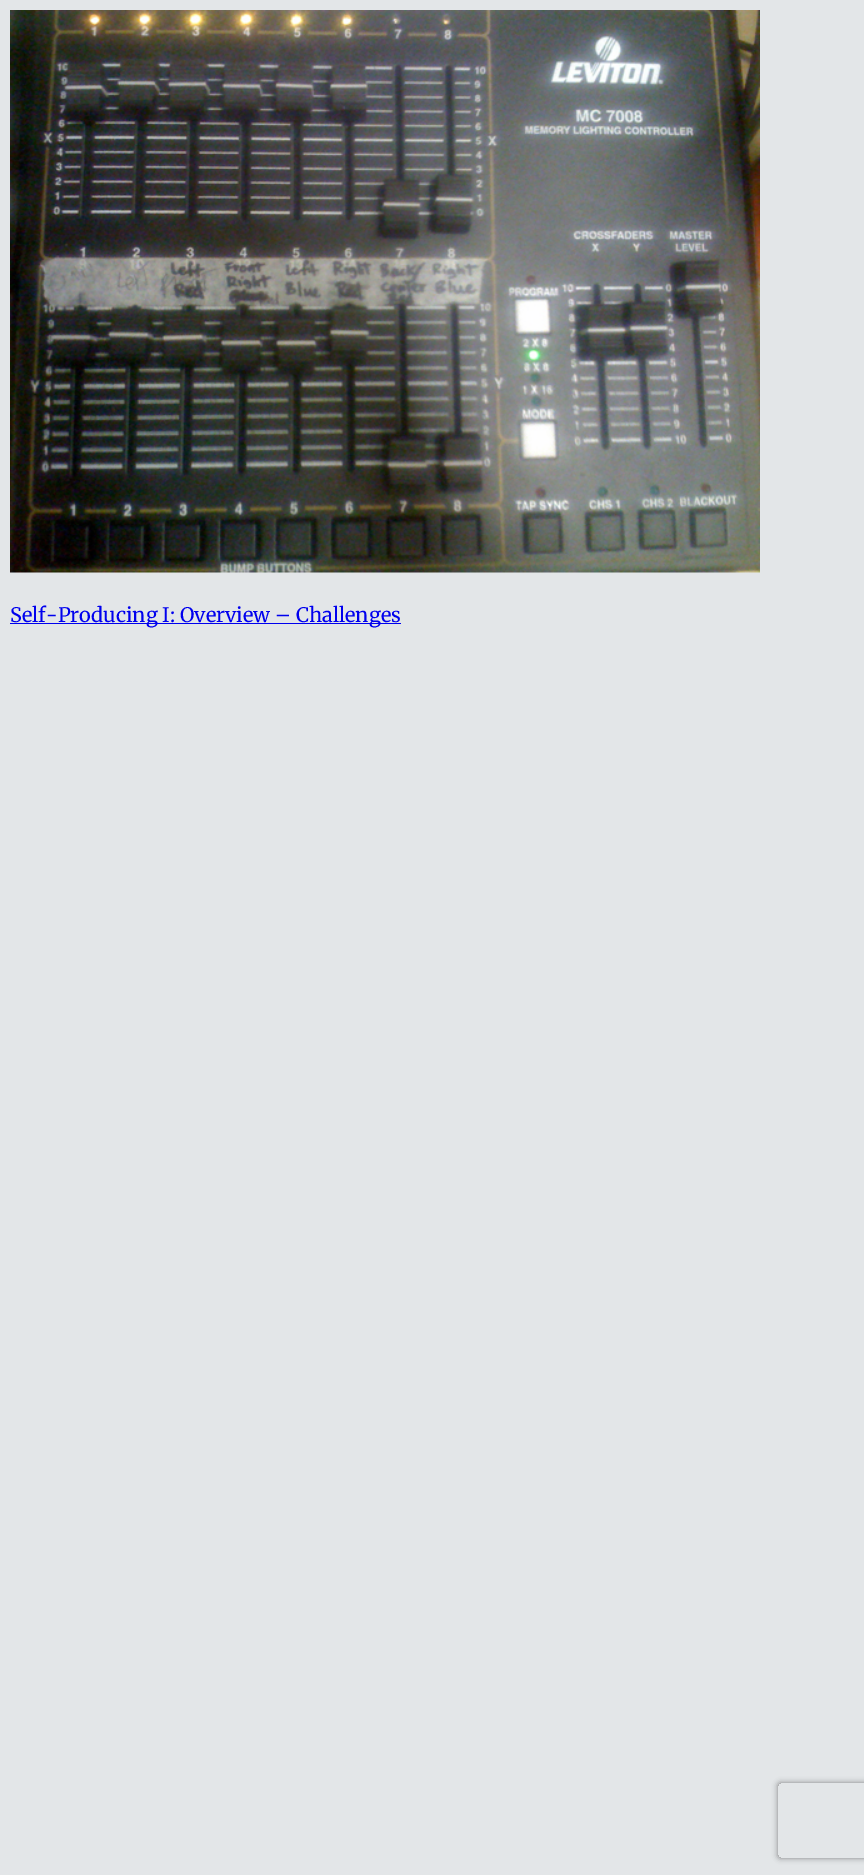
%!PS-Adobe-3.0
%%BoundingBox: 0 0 864 1875
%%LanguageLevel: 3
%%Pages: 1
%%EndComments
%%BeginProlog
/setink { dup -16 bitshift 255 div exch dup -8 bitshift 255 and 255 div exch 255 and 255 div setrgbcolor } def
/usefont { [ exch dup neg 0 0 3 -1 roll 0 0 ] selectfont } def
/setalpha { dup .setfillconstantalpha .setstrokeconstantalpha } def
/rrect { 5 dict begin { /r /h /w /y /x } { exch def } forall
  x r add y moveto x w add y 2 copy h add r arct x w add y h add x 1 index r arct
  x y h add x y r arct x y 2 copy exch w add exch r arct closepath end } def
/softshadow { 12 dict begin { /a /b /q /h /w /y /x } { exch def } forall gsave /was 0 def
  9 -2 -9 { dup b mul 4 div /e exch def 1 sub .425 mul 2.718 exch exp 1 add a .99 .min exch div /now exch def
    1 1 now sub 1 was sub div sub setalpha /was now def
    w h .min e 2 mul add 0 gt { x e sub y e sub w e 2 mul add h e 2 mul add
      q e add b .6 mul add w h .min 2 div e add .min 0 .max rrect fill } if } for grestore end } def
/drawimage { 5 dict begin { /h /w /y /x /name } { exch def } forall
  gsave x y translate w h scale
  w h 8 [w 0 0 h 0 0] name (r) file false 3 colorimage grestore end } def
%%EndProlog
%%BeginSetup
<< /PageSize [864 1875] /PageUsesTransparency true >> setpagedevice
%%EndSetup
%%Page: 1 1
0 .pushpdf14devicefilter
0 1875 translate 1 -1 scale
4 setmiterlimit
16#E3E6E8 setink
0 0 864 1875 rectfill
(img1.raw) 10 10 750 563 drawimage
16#0000EE setink
10 623 391 1 rectfill
/Merriweather-Regular 20 usefont
10 622 moveto (Self-Producing I: Overview – Challenges) show
gsave
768 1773 moveto 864 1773 lineto 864 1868 lineto 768 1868 lineto closepath 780.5 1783 moveto 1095.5 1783 lineto 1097 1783 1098 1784 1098 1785.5 curveto 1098 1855.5 lineto 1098 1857 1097 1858 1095.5 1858 curveto 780.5 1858 lineto 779 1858 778 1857 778 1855.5 curveto 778 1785.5 lineto 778 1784 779 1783 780.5 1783 curveto closepath eoclip newpath
16#808080 setink
778 1783 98 75 2.5 3 1 softshadow
grestore
.poppdf14devicefilter showpage
%%EOF
